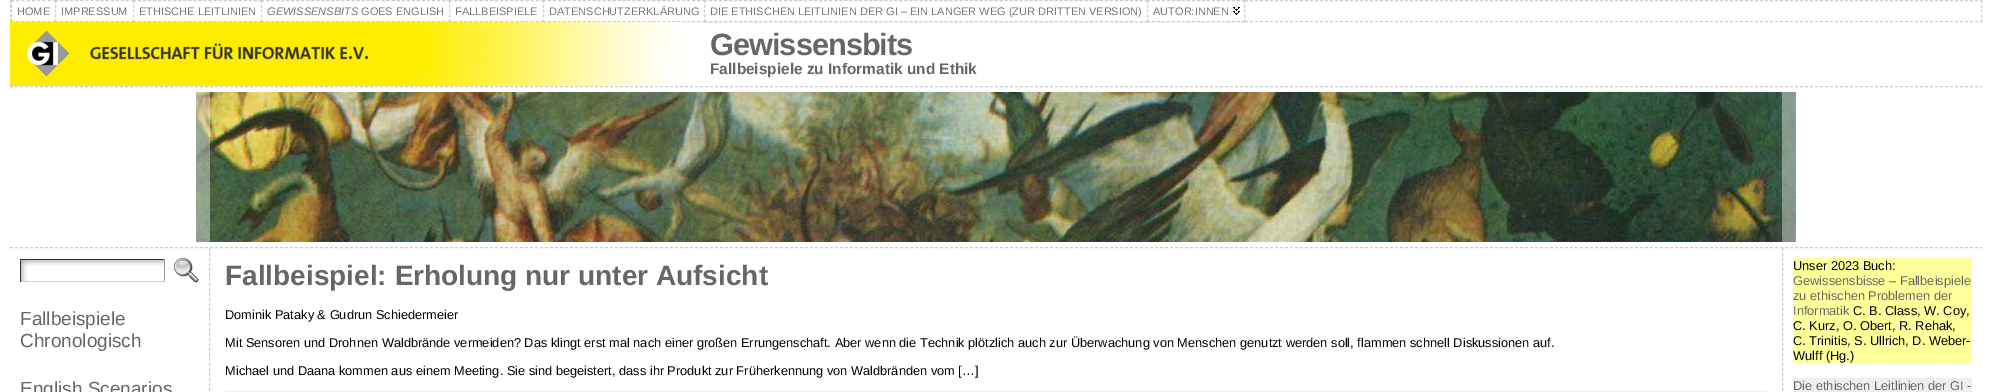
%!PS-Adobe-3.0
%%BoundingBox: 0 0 1992 392
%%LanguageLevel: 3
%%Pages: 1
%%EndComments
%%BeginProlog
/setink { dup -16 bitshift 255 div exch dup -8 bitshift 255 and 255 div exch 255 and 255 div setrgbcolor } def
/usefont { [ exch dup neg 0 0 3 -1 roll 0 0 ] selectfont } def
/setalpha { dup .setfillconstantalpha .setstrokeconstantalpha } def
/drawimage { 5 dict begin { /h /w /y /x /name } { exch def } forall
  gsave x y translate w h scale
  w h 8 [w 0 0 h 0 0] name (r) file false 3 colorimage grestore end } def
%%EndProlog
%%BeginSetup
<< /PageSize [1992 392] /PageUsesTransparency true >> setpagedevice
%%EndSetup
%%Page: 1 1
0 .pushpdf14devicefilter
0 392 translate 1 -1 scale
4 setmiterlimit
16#FFFFFF setink
0 0 1992 392 rectfill
16#CCCCCC setink
[3 2] 0 setdash
10 0.5 moveto 1982 0.5 lineto stroke
[3 1.75] 0 setdash
1981.5 0 moveto 1981.5 22 lineto stroke
[3 2] 0 setdash
10 21.5 moveto 1982 21.5 lineto stroke
[3 1.75] 0 setdash
10.5 0 moveto 10.5 22 lineto stroke
16#FFFFFF setink
11 0 42 22 rectfill
16#CCCCCC setink
[3 2.25] 0 setdash
11 0.5 moveto 56 0.5 lineto 11 21.5 moveto 56 21.5 lineto stroke
[3 1.75] 0 setdash
11.5 0 moveto 11.5 22 lineto stroke
/LiberationSans-Regular 11 usefont
16#777777 setink
17 15 moveto (HOME) show
16#FFFFFF setink
55 0 78 22 rectfill
16#CCCCCC setink
[3 2.07] 0 setdash
55 0.5 moveto 134 0.5 lineto stroke
55 21.5 moveto 134 21.5 lineto stroke
[3 1.75] 0 setdash
55.5 0 moveto 55.5 22 lineto stroke
16#777777 setink
61 15 moveto (IMPRESSUM) show
16#FFFFFF setink
133 0 128 22 rectfill
16#CCCCCC setink
[3 2.04] 0 setdash
133 0.5 moveto 262 0.5 lineto stroke
133 21.5 moveto 262 21.5 lineto stroke
[3 1.75] 0 setdash
133.5 0 moveto 133.5 22 lineto stroke
16#777777 setink
139 15 moveto (ETHISCHE LEITLINIEN) show
16#FFFFFF setink
261 0 187 22 rectfill
16#CCCCCC setink
[3 2.03] 0 setdash
261 0.5 moveto 450 0.5 lineto stroke
261 21.5 moveto 450 21.5 lineto stroke
[3 1.75] 0 setdash
261.5 0 moveto 261.5 22 lineto stroke
/LiberationSans-Italic 11 usefont
16#777777 setink
267 15 moveto (GEWISSENSBITS) show
/LiberationSans-Regular 11 usefont
361 15 moveto (GOES ENGLISH) show
16#FFFFFF setink
449 0 94 22 rectfill
16#CCCCCC setink
[3 2.11] 0 setdash
449 0.5 moveto 544 0.5 lineto stroke
449 21.5 moveto 544 21.5 lineto stroke
[3 1.75] 0 setdash
449.5 0 moveto 449.5 22 lineto stroke
16#777777 setink
455 15 moveto (FALLBEISPIELE) show
16#FFFFFF setink
543 0 160 22 rectfill
16#CCCCCC setink
[3 1.97] 0 setdash
543 0.5 moveto 705 0.5 lineto stroke
543 21.5 moveto 705 21.5 lineto stroke
[3 1.75] 0 setdash
543.5 0 moveto 543.5 22 lineto stroke
16#777777 setink
549 15 moveto (DATENSCHUTZERKLÄRUNG) show
16#FFFFFF setink
704 0 443 22 rectfill
16#CCCCCC setink
[3 2.01] 0 setdash
704 0.5 moveto 1148 0.5 lineto stroke
704 21.5 moveto 1148 21.5 lineto stroke
[3 1.75] 0 setdash
704.5 0 moveto 704.5 22 lineto stroke
16#777777 setink
710 15 moveto (DIE ETHISCHEN LEITLINIEN DER GI – EIN LANGER WEG \(ZUR DRITTEN VERSION\)) show
16#FFFFFF setink
1147 0 96 22 rectfill
(img1.raw) 1233 7 7 8 drawimage
16#CCCCCC setink
[3 2] 0 setdash
1147 0.5 moveto 1245 0.5 lineto stroke
[3 1.75] 0 setdash
1244.5 0 moveto 1244.5 22 lineto stroke
[3 2] 0 setdash
1147 21.5 moveto 1245 21.5 lineto stroke
[3 1.75] 0 setdash
1147.5 0 moveto 1147.5 22 lineto stroke
16#777777 setink
1153 15 moveto (AUTOR:INNEN) show
(img2.raw) 10 22 675 64 drawimage
/LiberationSans-Bold 30.75 usefont
16#666666 setink
710 55 moveto -1 0 (Gewissensbits) ashow
/LiberationSans-Bold 15.4 usefont
710 74 moveto (Fallbeispiele zu Informatik und Ethik) show
16#CCCCCC setink
[3 2] 0 setdash
10 86.5 moveto 1982 86.5 lineto stroke
(img3.raw) 196 92 1600 150 drawimage
0.4 setalpha
16#FFFFFF setink
196 92 14 150 rectfill
1782 92 14 150 rectfill
1 setalpha
16#CCCCCC setink
10 247.5 moveto 1982 247.5 lineto stroke
209.5 248 moveto 209.5 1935 lineto stroke
(img4.raw) 21 260 143 21 drawimage
[
    [20 259 145 1 16#333333]
    [164 259 1 23 16#999999]
    [20 281 145 1 16#CCCCCC]
    [20 259 1 23 16#333333]
] { aload pop setink rectfill } forall
(img5.raw) 174 258 25 25 drawimage
/LiberationSans-Regular 19 usefont
16#666666 setink
[
    [(Fallbeispiele) 20 325]
    [(Chronologisch) 20 347]
    [(English Scenarios) 20 395]
] { aload pop moveto show } forall
/LiberationSans-Bold 28 usefont
225 285 moveto (Fallbeispiel: Erholung nur unter Aufsicht) show
/LiberationSans-Regular 12.8 usefont
16#000000 setink
[
    [(Dominik Pataky & Gudrun Schiedermeier) 225 319]
    [(Mit Sensoren und Drohnen Waldbrände vermeiden? Das klingt erst mal nach einer großen Errungenschaft. Aber wenn die Technik plötzlich auch zur Überwachung von Menschen genutzt werden soll, flammen schnell Diskussionen auf.) 225 347]
    [(Michael und Daana kommen aus einem Meeting. Sie sind begeistert, dass ihr Produkt zur Früherkennung von Waldbränden vom […]) 225 375]
] { aload pop moveto show } forall
16#EEEEEE setink
225 391 1542 1 rectfill
16#CCCCCC setink
1782.5 248 moveto 1782.5 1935 lineto stroke
16#FFFF99 setink
1793 258 179 105 rectfill
16#000000 setink
1793 270 moveto (Unser 2023 Buch:) show
16#666666 setink
[
    [(Gewissensbisse – Fallbeispiele) 1793 285]
    [(zu ethischen Problemen der) 1793 300]
    [(Informatik) 1793 315]
] { aload pop moveto show } forall
16#000000 setink
[
    [(C. B. Class, W. Coy,) 1853 315]
    [(C. Kurz, O. Obert, R. Rehak,) 1793 330]
    [(C. Trinitis, S. Ullrich, D. Weber-) 1793 345]
    [(Wulff \(Hg.\)) 1793 360]
] { aload pop moveto show } forall
16#EEEEEE setink
1793 378 179 14 rectfill
16#666666 setink
1793 390 moveto (Die ethischen Leitlinien der GI -) show
.poppdf14devicefilter showpage
%%EOF
